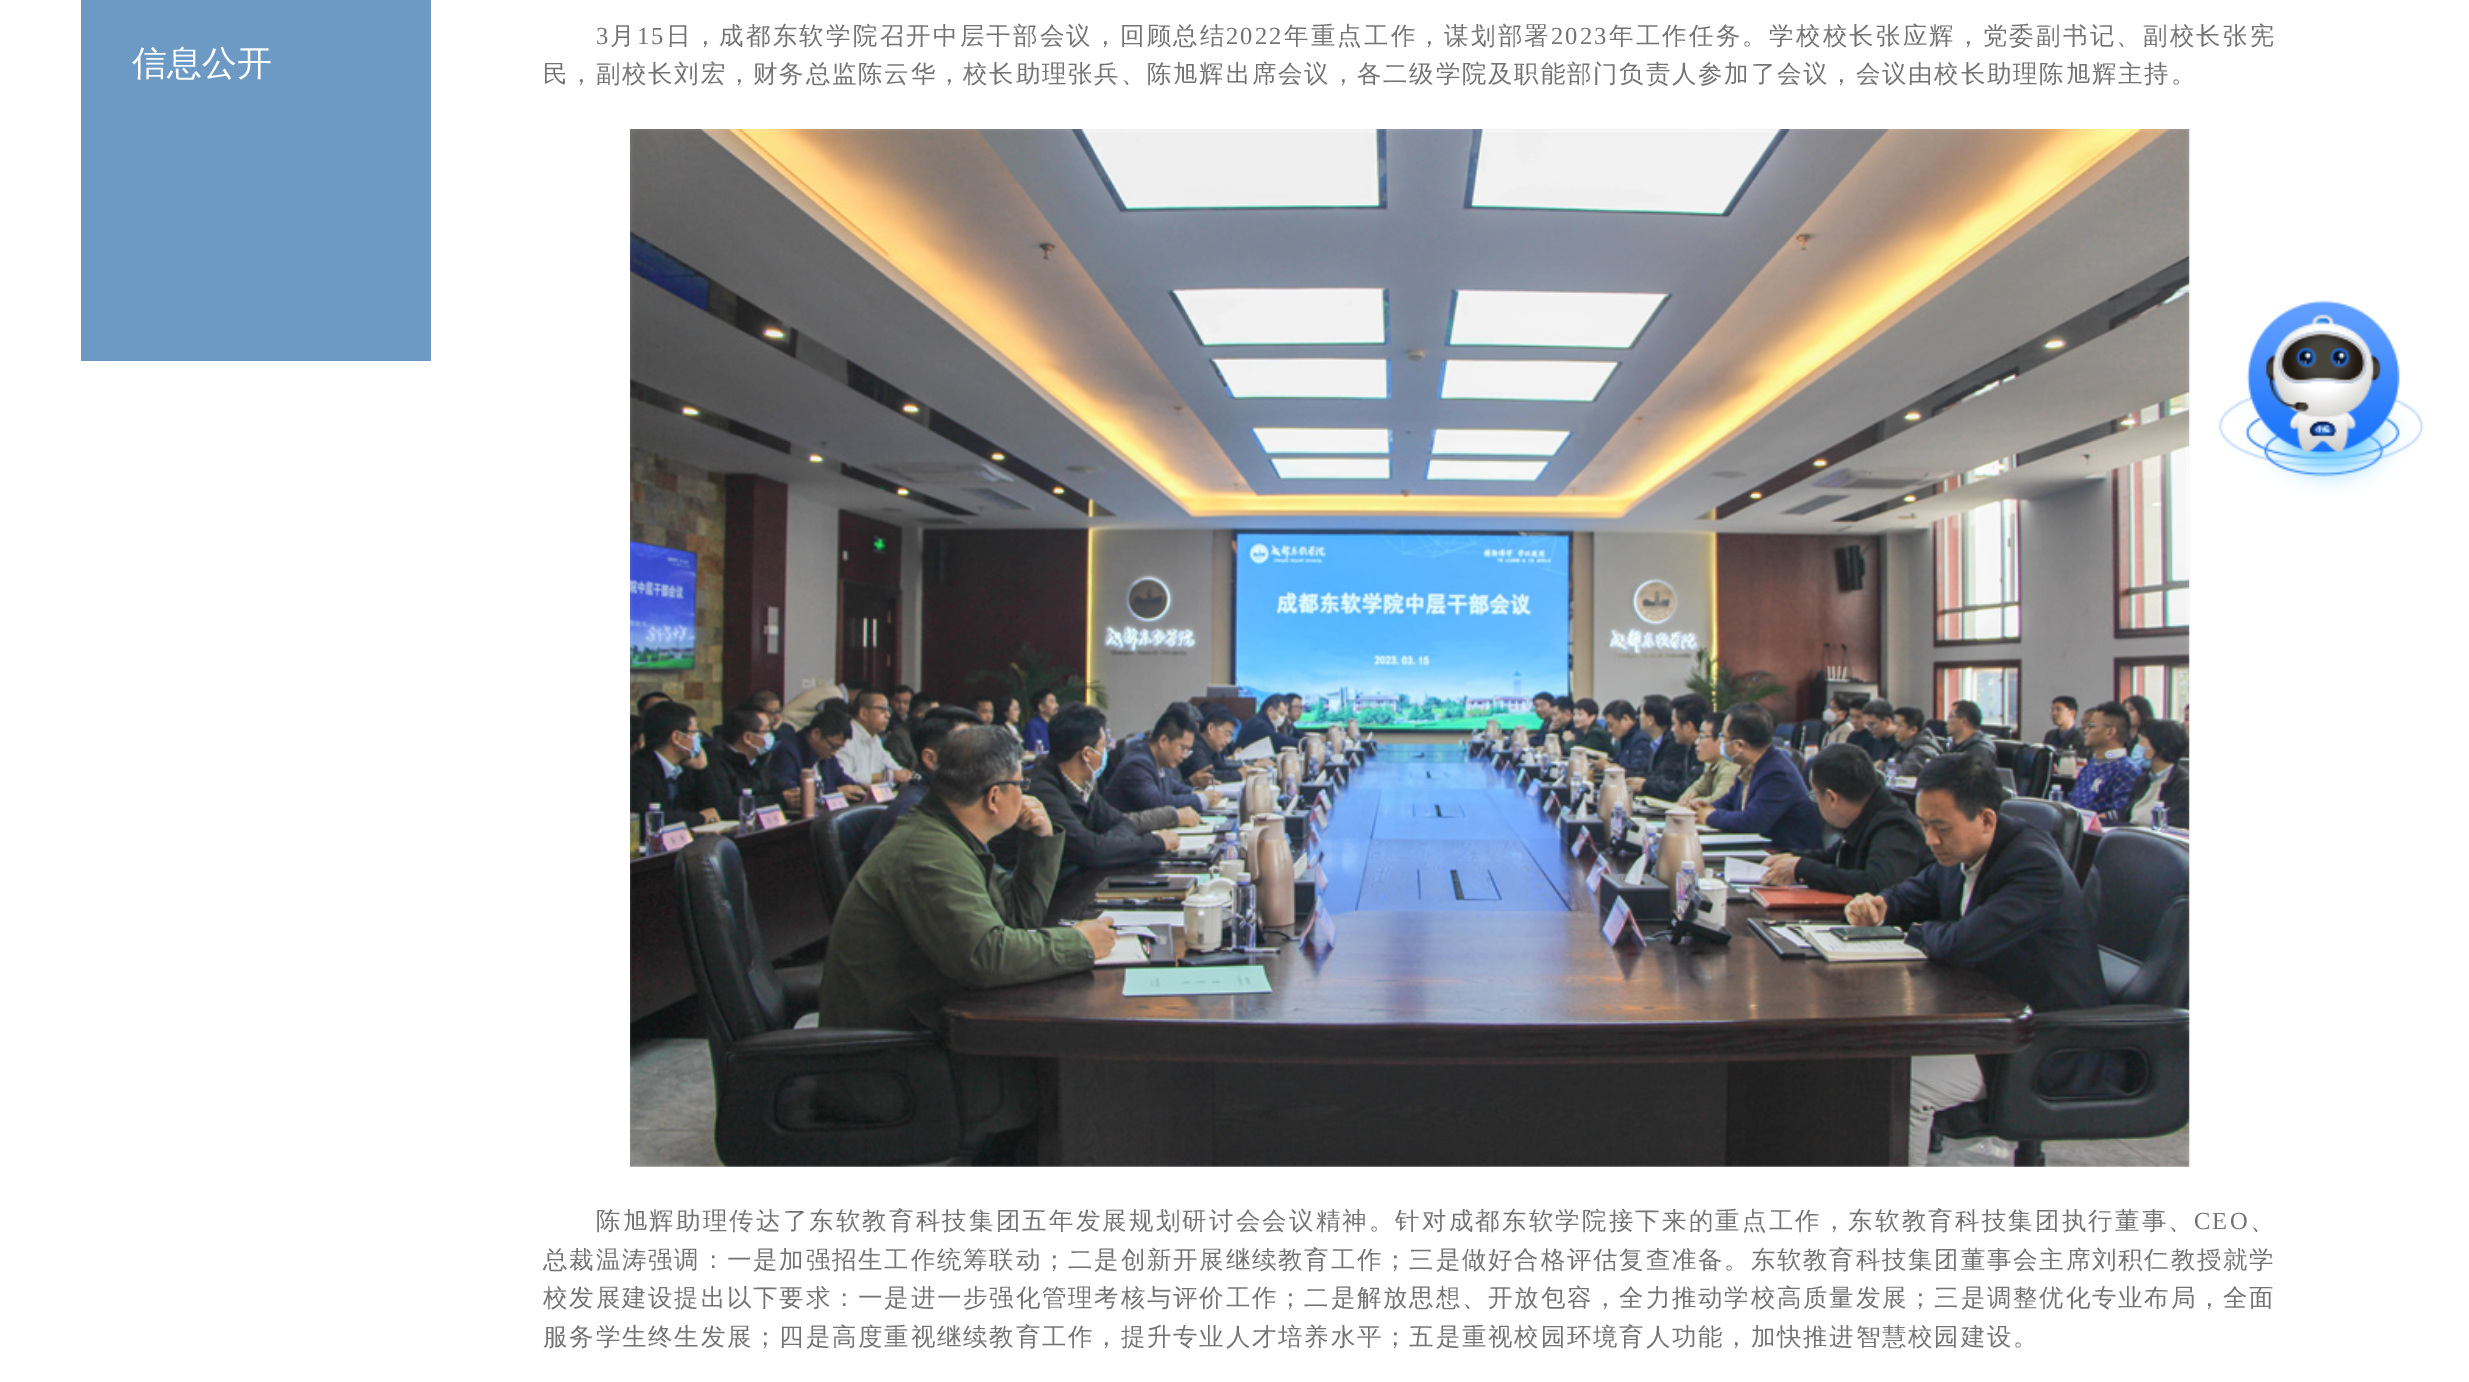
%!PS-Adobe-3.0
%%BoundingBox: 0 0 2469 1382
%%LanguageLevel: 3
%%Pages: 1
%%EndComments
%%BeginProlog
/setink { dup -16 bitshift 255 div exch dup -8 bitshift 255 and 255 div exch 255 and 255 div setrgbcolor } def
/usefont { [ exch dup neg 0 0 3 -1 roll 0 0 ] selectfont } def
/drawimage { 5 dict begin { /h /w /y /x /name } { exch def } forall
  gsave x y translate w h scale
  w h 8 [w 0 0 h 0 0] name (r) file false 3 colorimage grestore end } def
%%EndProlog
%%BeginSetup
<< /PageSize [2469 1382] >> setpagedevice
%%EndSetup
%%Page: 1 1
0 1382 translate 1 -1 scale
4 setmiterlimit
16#FFFFFF setink
0 0 2469 1382 rectfill
16#6D9AC5 setink
81 0 350 361 rectfill
/WenQuanYiZenHei-Medium 35 usefont
16#FFFFFF setink
132 75 moveto (信息公开) show
/LiberationSerif-Regular 24.5 usefont
16#737373 setink
596 44 moveto 2.2 0 (3) ashow
/WenQuanYiZenHei-Medium 24.5 usefont
610 44 moveto 2.2 0 (月) ashow
/LiberationSerif-Regular 24.5 usefont
637 44 moveto 2.2 0 (15) ashow
/WenQuanYiZenHei-Medium 24.5 usefont
666 44 moveto 2.2 0 (日，成都东软学院召开中层干部会议，回顾总结) ashow
/LiberationSerif-Regular 24.5 usefont
1226 44 moveto 2.2 0 (2022) ashow
/WenQuanYiZenHei-Medium 24.5 usefont
1284 44 moveto 2.2 0 (年重点工作，谋划部署) ashow
/LiberationSerif-Regular 24.5 usefont
1551 44 moveto 2.2 0 (2023) ashow
/WenQuanYiZenHei-Medium 24.5 usefont
1609 44 moveto 2.2 0 (年工作任务。学校校长张应辉，党委副书记、副校长张宪) ashow
543 82 moveto 1.75 0 (民，副校长刘宏，财务总监陈云华，校长助理张兵、陈旭辉出席会议，各二级学院及职能部门负责人参加了会议，会议由校长助理陈旭辉主持。) ashow
(img1.raw) 630 129 1560 1038 drawimage
596 1229 moveto 2.15 0 (陈旭辉助理传达了东软教育科技集团五年发展规划研讨会会议精神。针对成都东软学院接下来的重点工作，东软教育科技集团执行董事、) ashow
/LiberationSerif-Regular 24.5 usefont
2194 1229 moveto 2.15 0 (CEO) ashow
/WenQuanYiZenHei-Medium 24.5 usefont
2250 1229 moveto 2.15 0 (、) ashow
543 1268 moveto 1.75 0 (总裁温涛强调：一是加强招生工作统筹联动；二是创新开展继续教育工作；三是做好合格评估复查准备。东软教育科技集团董事会主席刘积仁教授就学) ashow
543 1306 moveto 1.75 0 (校发展建设提出以下要求：一是进一步强化管理考核与评价工作；二是解放思想、开放包容，全力推动学校高质量发展；三是调整优化专业布局，全面) ashow
543 1345 moveto 1.75 0 (服务学生终生发展；四是高度重视继续教育工作，提升专业人才培养水平；五是重视校园环境育人功能，加快推进智慧校园建设。) ashow
(img2.raw) 2218 300 206 194 drawimage
showpage
%%EOF
